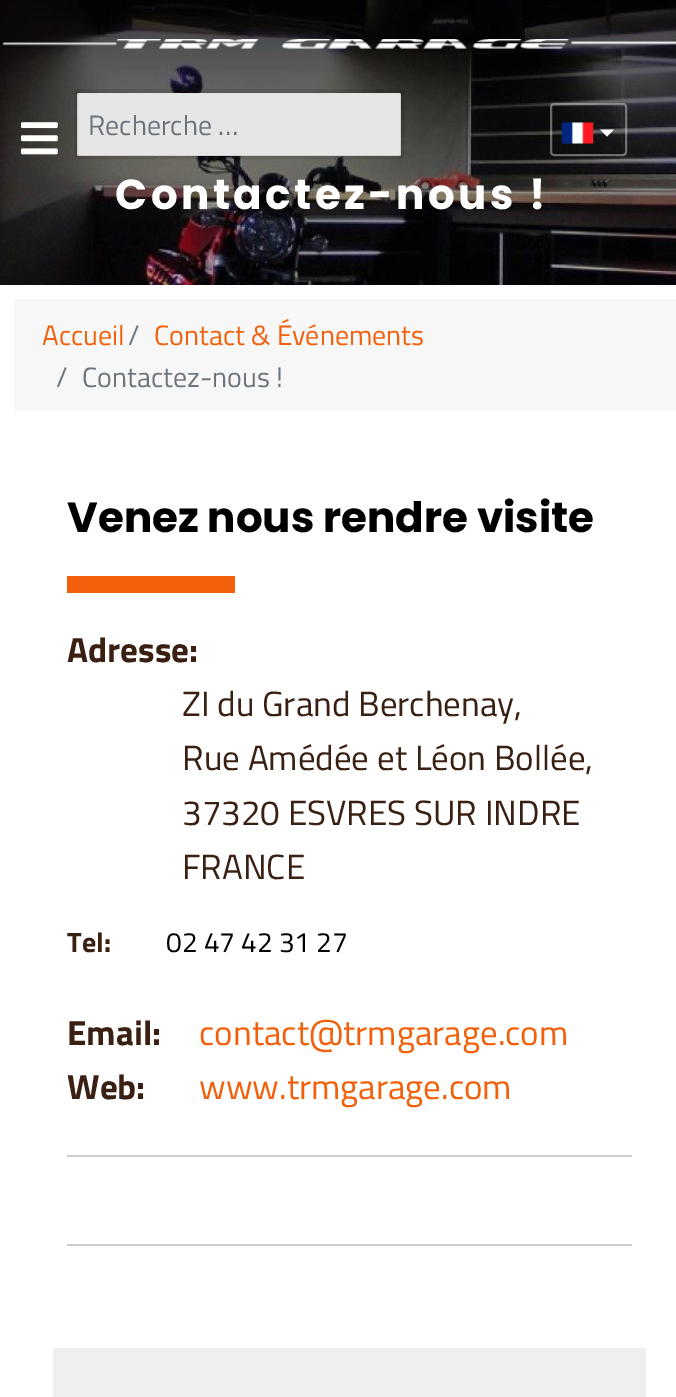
%!PS-Adobe-3.0
%%BoundingBox: 0 0 676 1397
%%LanguageLevel: 3
%%Pages: 1
%%EndComments
%%BeginProlog
/setink { dup -16 bitshift 255 div exch dup -8 bitshift 255 and 255 div exch 255 and 255 div setrgbcolor } def
/usefont { [ exch dup neg 0 0 3 -1 roll 0 0 ] selectfont } def
/setalpha { dup .setfillconstantalpha .setstrokeconstantalpha } def
/rrect { 5 dict begin { /r /h /w /y /x } { exch def } forall
  x r add y moveto x w add y 2 copy h add r arct x w add y h add x 1 index r arct
  x y h add x y r arct x y 2 copy exch w add exch r arct closepath end } def
/drawimage { 5 dict begin { /h /w /y /x /name } { exch def } forall
  gsave x y translate w h scale
  w h 8 [w 0 0 h 0 0] name (r) file false 3 colorimage grestore end } def
%%EndProlog
%%BeginSetup
<< /PageSize [676 1397] /PageUsesTransparency true >> setpagedevice
%%EndSetup
%%Page: 1 1
0 .pushpdf14devicefilter
0 1397 translate 1 -1 scale
4 setmiterlimit
16#FFFFFF setink
0 0 676 1397 rectfill
(img4.raw) 0 0 676 285 drawimage
(img1.raw) 2 39 674 10 drawimage
(img2.raw) 21 122 37 33 drawimage
16#E6E6E6 setink
77 93 324 63 2 rrect fill
0.1 setalpha
16#000000 setink
4 setlinewidth
76 91 326 66 3 rrect stroke
/TitilliumWeb-Regular 28 usefont
1 setalpha
16#6C757D setink
88 135 moveto (Recherche …) show
0.4 setalpha
16#F4F4F4 setink
2 setlinewidth
551 104 75 51 3 rrect stroke
1 setalpha
(img3.raw) 561 122 33 22 drawimage
16#FFFFFF setink
600 129.5 moveto 614 129.5 lineto 607 136.5 lineto closepath fill
/Poppins-Bold 42 usefont
115 209 moveto 3.5 0 (Contactez-nous !) ashow
16#F7F7F7 setink
14 299 662 112 rectfill
/TitilliumWeb-Regular 28 usefont
16#F3600B setink
42 345 moveto (Accueil) show
16#6C757D setink
128 345 moveto (/) show
16#F3600B setink
154 345 moveto (Contact & Événements) show
16#6C757D setink
56 387 moveto (/) show
82 387 moveto (Contactez-nous !) show
/Poppins-Bold 42 usefont
16#000000 setink
67 532 moveto (Venez nous rendre visite) show
16#F3600B setink
67 576 168 17 rectfill
/TitilliumWeb-Bold 35 usefont
16#3A2012 setink
67 662 moveto (Adresse:) show
/TitilliumWeb-Regular 35 usefont
[
    [(ZI du Grand Berchenay,) 182 716]
    [(Rue Amédée et Léon Bollée,) 182 770]
    [(37320 ESVRES SUR INDRE) 182 825]
    [(FRANCE) 182 879]
] { aload pop moveto show } forall
/TitilliumWeb-Bold 28 usefont
67 952 moveto (Tel:) show
/TitilliumWeb-Regular 28 usefont
16#000000 setink
166 952 moveto (02 47 42 31 27) show
/TitilliumWeb-Bold 35 usefont
16#3A2012 setink
67 1045 moveto (Email:) show
/TitilliumWeb-Regular 35 usefont
16#F3600B setink
199 1045 moveto (contact@trmgarage.com) show
/TitilliumWeb-Bold 35 usefont
16#3A2012 setink
67 1099 moveto (Web:) show
/TitilliumWeb-Regular 35 usefont
16#F3600B setink
199 1099 moveto (www.trmgarage.com) show
[
    [67 1155 565 2 16#CCCCCC]
    [67 1244 565 2 16#CCCCCC]
    [53 1348 593 49 16#EFEFEF]
] { aload pop setink rectfill } forall
.poppdf14devicefilter showpage
%%EOF
